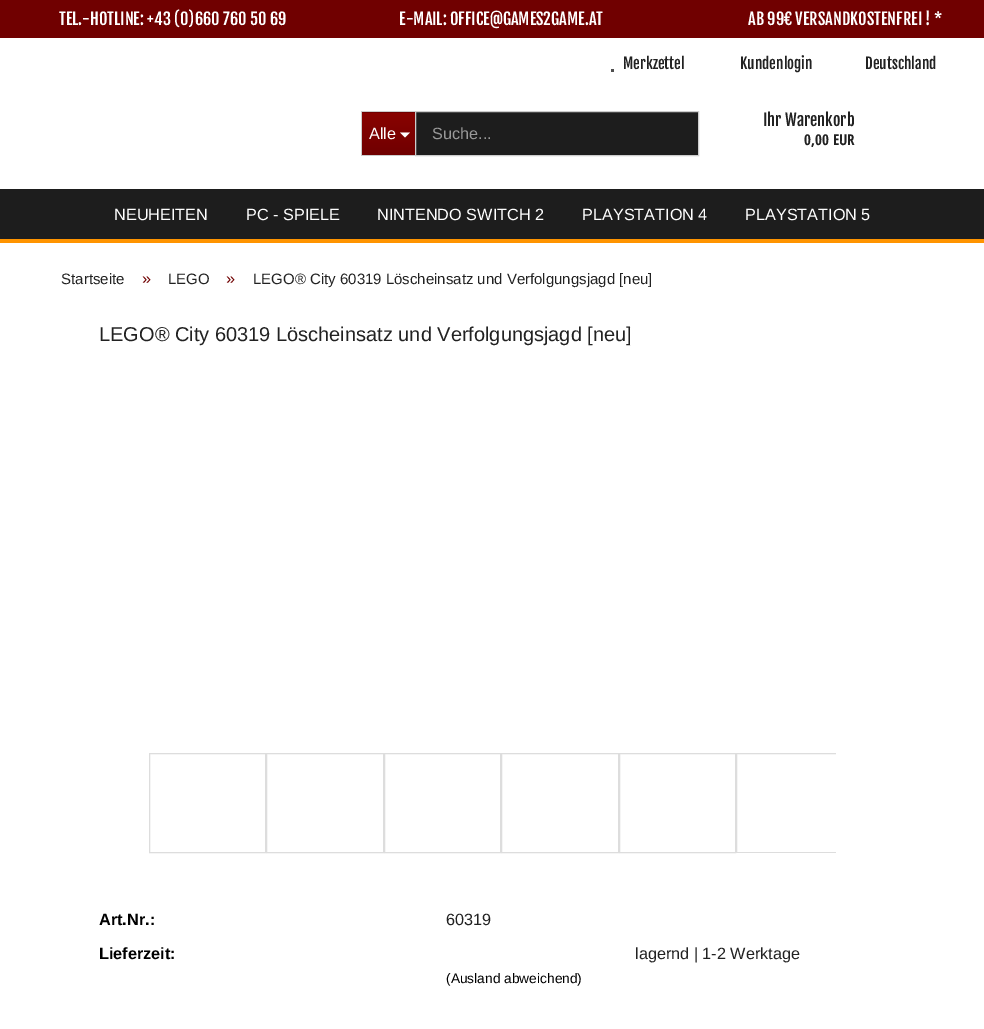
%!PS-Adobe-3.0
%%BoundingBox: 0 0 984 1029
%%LanguageLevel: 3
%%Pages: 1
%%EndComments
%%BeginProlog
/setink { dup -16 bitshift 255 div exch dup -8 bitshift 255 and 255 div exch 255 and 255 div setrgbcolor } def
/usefont { [ exch dup neg 0 0 3 -1 roll 0 0 ] selectfont } def
%%EndProlog
%%BeginSetup
<< /PageSize [984 1029] >> setpagedevice
%%EndSetup
%%Page: 1 1
0 1029 translate 1 -1 scale
4 setmiterlimit
16#FFFFFF setink
0 0 984 1029 rectfill
16#700000 setink
0 0 984 38 rectfill
/FjallaOne-Regular 16.25 usefont
16#FFFFFF setink
[
    [(TEL.-HOTLINE: +43 \(0\)660 760 50 69) 59 25]
    [(E-MAIL: OFFICE@GAMES2GAME.AT) 399 25]
    [(AB 99€ VERSANDKOSTENFREI ! *) 748 25]
] { aload pop moveto show } forall
/FjallaOne-Regular 15 usefont
16#222222 setink
623 69 moveto (Merkzettel) show
16#4F4F4F setink
611 69 3 3 rectfill
16#222222 setink
740 69 moveto (Kundenlogin) show
865 69 moveto (Deutschland) show
16#700000 setink
362 112 53 1 rectfill
gsave 362 113 moveto 415 113 lineto 415 155 lineto 362 155 lineto closepath clip newpath
<< /ShadingType 2 /ColorSpace /DeviceRGB /Coords [389 113 389 155] /Extend [true true] /Function << /FunctionType 2 /Domain [0 1] /C0 [0.537 0.012 0] /C1 [0.439 0 0] /N 1 >> >> shfill grestore
[
    [361 111 54 1 16#CCCCCC]
    [361 155 54 1 16#CCCCCC]
    [361 111 1 45 16#CCCCCC]
] { aload pop setink rectfill } forall
/LiberationSans-Regular 16.25 usefont
16#FFFFFF setink
369 139 moveto (Alle) show
400 132.5 moveto 410 132.5 lineto 405 137.5 lineto closepath fill
16#1D1D1D setink
415.5 111.5 moveto 698.5 111.5 lineto 698.5 155.5 lineto 415.5 155.5 lineto closepath gsave fill grestore
16#CCCCCC setink
stroke
16#999999 setink
432 139 moveto (Suche...) show
/FjallaOne-Regular 16.25 usefont
16#222222 setink
763 126 moveto (Ihr Warenkorb) show
/OpenSansCondensed-Bold 15 usefont
804 145 moveto (0,00 EUR) show
16#1D1D1D setink
0 189 984 50 rectfill
16#FF9400 setink
0 239 984 4 rectfill
/LiberationSans-Regular 16.25 usefont
16#FFFFFF setink
[
    [(NEUHEITEN) 114 220]
    [(PC - SPIELE) 246 220]
    [(NINTENDO SWITCH 2) 377 220]
    [(PLAYSTATION 4) 582 220]
    [(PLAYSTATION 5) 745 220]
] { aload pop moveto show } forall
/LiberationSans-Regular 15 usefont
16#222222 setink
61 284 moveto (Startseite) show
/LiberationSans-Regular 16.25 usefont
16#700000 setink
142 284 moveto (») show
/LiberationSans-Regular 15 usefont
16#222222 setink
168 284 moveto (LEGO) show
/LiberationSans-Regular 16.25 usefont
16#700000 setink
226 284 moveto (») show
/LiberationSans-Regular 15 usefont
16#222222 setink
253 284 moveto (LEGO® City 60319 Löscheinsatz und Verfolgungsjagd [neu]) show
/LiberationSans-Regular 20 usefont
99 341 moveto (LEGO® City 60319 Löscheinsatz und Verfolgungsjagd [neu]) show
16#DDDDDD setink
149.5 753.5 116 99 rectstroke
266.5 753.5 117 99 rectstroke
384.5 753.5 116 99 rectstroke
501.5 753.5 117 99 rectstroke
619.5 753.5 116 99 rectstroke
gsave
149 753 687 100 rectclip
736.5 753.5 117 99 rectstroke
grestore
/LiberationSans-Bold 16.25 usefont
16#000000 setink
99 925 moveto (Art.Nr.:) show
/LiberationSans-Regular 16.25 usefont
16#222222 setink
446 925 moveto (60319) show
/LiberationSans-Bold 16.25 usefont
16#000000 setink
99 959 moveto (Lieferzeit:) show
/LiberationSans-Regular 16.25 usefont
16#222222 setink
635 959 moveto (lagernd | 1-2 Werktage) show
/LiberationSans-Regular 13.75 usefont
16#000000 setink
446 983 moveto (\(Ausland abweichend\)) show
showpage
%%EOF
